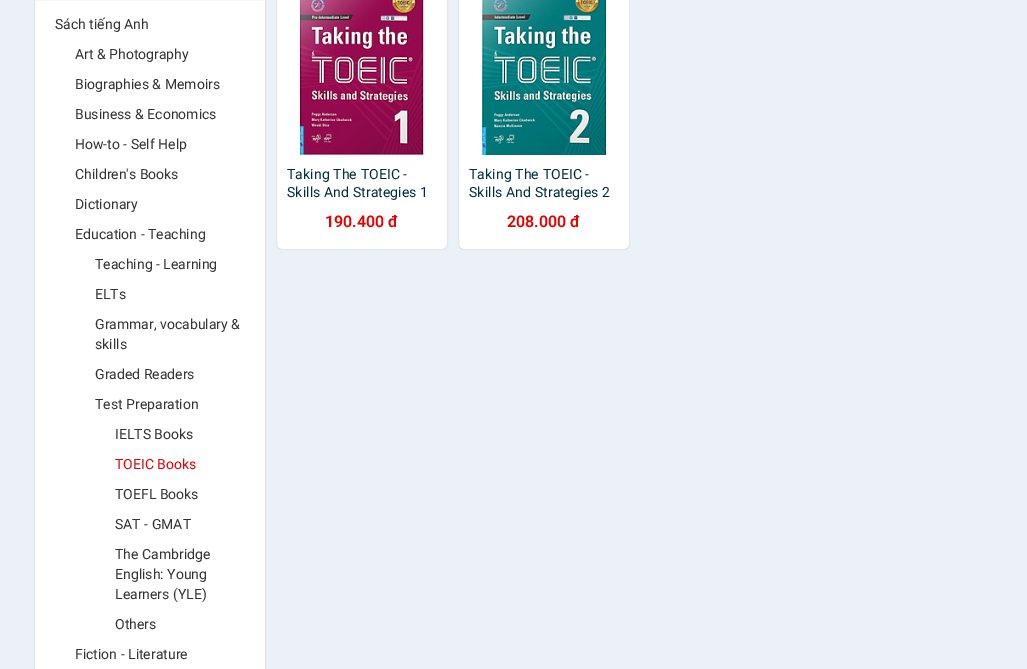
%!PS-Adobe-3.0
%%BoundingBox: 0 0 1027 669
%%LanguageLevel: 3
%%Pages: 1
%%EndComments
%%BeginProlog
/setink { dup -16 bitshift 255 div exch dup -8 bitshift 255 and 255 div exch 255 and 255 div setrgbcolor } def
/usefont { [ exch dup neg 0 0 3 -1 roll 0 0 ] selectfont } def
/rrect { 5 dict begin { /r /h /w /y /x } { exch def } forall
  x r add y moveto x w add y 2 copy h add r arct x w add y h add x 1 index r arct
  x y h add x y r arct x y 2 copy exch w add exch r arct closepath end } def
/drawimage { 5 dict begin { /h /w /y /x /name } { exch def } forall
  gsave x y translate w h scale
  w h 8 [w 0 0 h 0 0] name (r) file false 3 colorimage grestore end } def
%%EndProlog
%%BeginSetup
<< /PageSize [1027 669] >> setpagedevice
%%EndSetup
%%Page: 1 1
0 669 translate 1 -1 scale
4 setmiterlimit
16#ECF1F7 setink
0 0 1027 669 rectfill
16#FFFFFF setink
34.5 -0.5 moveto 265.5 -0.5 lineto 265.5 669.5 lineto 34.5 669.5 lineto closepath gsave fill grestore
16#E5E5E5 setink
stroke
/Roboto-Regular 14 usefont
16#333333 setink
[
    [(Sách tiếng Anh) 55 29]
    [(Art & Photography) 75 59]
    [(Biographies & Memoirs) 75 89]
    [(Business & Economics) 75 119]
    [(How-to - Self Help) 75 149]
    [(Children's Books) 75 179]
    [(Dictionary) 75 209]
    [(Education - Teaching) 75 239]
    [(Teaching - Learning) 95 269]
    [(ELTs) 95 299]
    [(Grammar, vocabulary &) 95 329]
    [(skills) 95 349]
    [(Graded Readers) 95 379]
    [(Test Preparation) 95 409]
    [(IELTS Books) 115 439]
] { aload pop moveto show } forall
16#E60000 setink
115 469 moveto (TOEIC Books) show
16#333333 setink
[
    [(TOEFL Books) 115 499]
    [(SAT - GMAT) 115 529]
    [(The Cambridge) 115 559]
    [(English: Young) 115 579]
    [(Learners \(YLE\)) 115 599]
    [(Others) 115 629]
    [(Fiction - Literature) 75 659]
] { aload pop moveto show } forall
16#FFFFFF setink
276.5 -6.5 171 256 5.5 rrect gsave fill grestore
16#DFE7EF setink
stroke
(img1.raw) 297 0 129 155 drawimage
16#012D41 setink
287 179 moveto 0.1 0 (Taking The TOEIC -) ashow
287 197 moveto 0.1 0 (Skills And Strategies 1) ashow
/Roboto-SemiBold 16 usefont
16#E60000 setink
325 227 moveto (190.400 đ) show
16#FFFFFF setink
458.5 -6.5 171 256 5.5 rrect gsave fill grestore
16#DFE7EF setink
stroke
(img2.raw) 479 0 129 155 drawimage
/Roboto-Regular 14 usefont
16#012D41 setink
469 179 moveto 0.1 0 (Taking The TOEIC -) ashow
469 197 moveto 0.1 0 (Skills And Strategies 2) ashow
/Roboto-SemiBold 16 usefont
16#E60000 setink
507 227 moveto (208.000 đ) show
showpage
%%EOF
